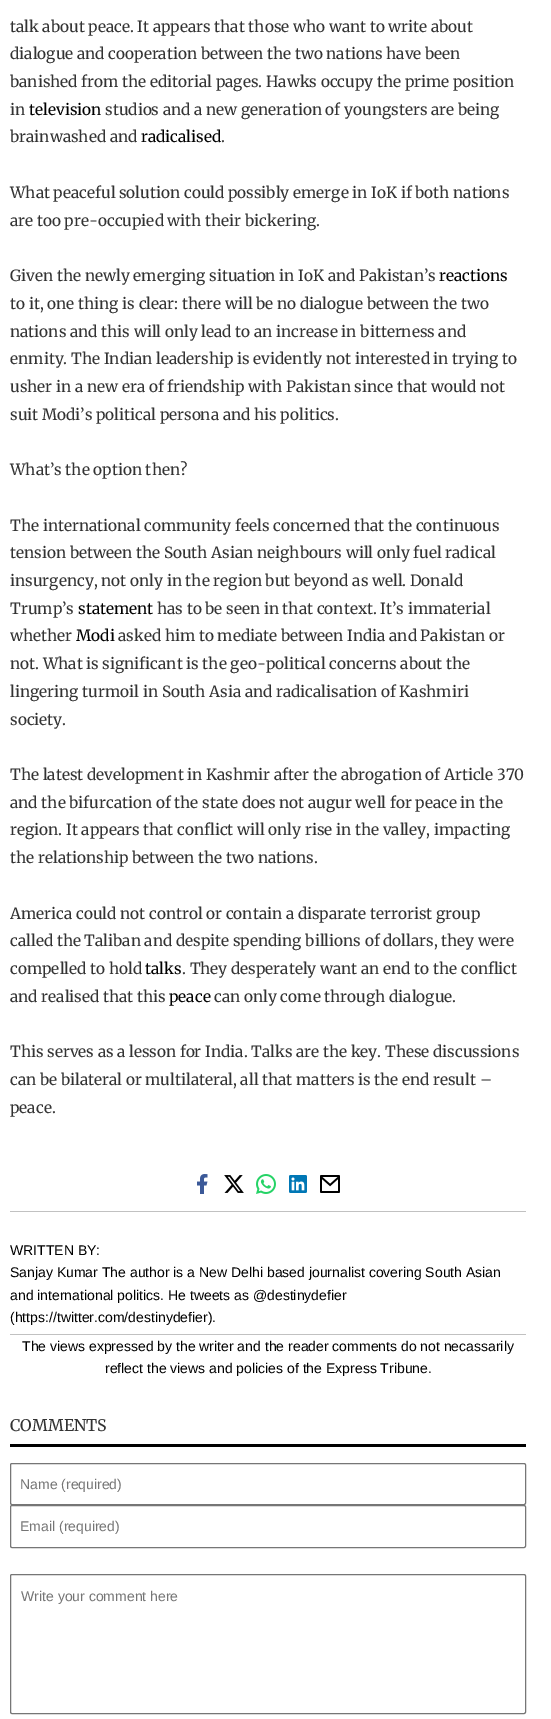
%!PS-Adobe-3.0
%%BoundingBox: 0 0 551 1719
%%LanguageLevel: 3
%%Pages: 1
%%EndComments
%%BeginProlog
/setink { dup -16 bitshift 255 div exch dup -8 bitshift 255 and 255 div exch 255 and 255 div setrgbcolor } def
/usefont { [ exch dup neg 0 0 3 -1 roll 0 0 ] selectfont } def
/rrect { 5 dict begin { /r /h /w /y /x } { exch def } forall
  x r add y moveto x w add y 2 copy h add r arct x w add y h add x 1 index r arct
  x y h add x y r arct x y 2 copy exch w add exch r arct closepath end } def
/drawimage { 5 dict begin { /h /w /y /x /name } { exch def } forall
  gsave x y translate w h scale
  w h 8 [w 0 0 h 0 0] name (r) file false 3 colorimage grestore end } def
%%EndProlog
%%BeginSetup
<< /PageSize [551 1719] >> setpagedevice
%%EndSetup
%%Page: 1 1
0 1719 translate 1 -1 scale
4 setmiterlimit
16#FFFFFF setink
0 0 551 1719 rectfill
/Merriweather-Regular 15.4 usefont
16#333333 setink
[
    [(talk about peace. It appears that those who want to write about) 10 32]
    [(dialogue and cooperation between the two nations have been) 10 59]
    [(banished from the editorial pages. Hawks occupy the prime position) 10 87]
    [(in) 10 115]
] { aload pop moveto show } forall
16#000000 setink
29 115 moveto (television) show
16#333333 setink
105 115 moveto (studios and a new generation of youngsters are being) show
10 142 moveto (brainwashed and) show
16#000000 setink
141 142 moveto (radicalised) show
16#333333 setink
[
    [(.) 221 142]
    [(What peaceful solution could possibly emerge in IoK if both nations) 10 198]
    [(are too pre-occupied with their bickering.) 10 226]
    [(Given the newly emerging situation in IoK and Pakistan’s) 10 281]
] { aload pop moveto show } forall
16#000000 setink
439 281 moveto (reactions) show
16#333333 setink
[
    [(to it, one thing is clear: there will be no dialogue between the two) 10 309]
    [(nations and this will only lead to an increase in bitterness and) 10 337]
    [(enmity. The Indian leadership is evidently not interested in trying to) 10 364]
    [(usher in a new era of friendship with Pakistan since that would not) 10 392]
    [(suit Modi’s political persona and his politics.) 10 420]
    [(What’s the option then?) 10 475]
    [(The international community feels concerned that the continuous) 10 531]
    [(tension between the South Asian neighbours will only fuel radical) 10 558]
    [(insurgency, not only in the region but beyond as well. Donald) 10 586]
    [(Trump’s) 10 614]
] { aload pop moveto show } forall
16#000000 setink
78 614 moveto (statement) show
16#333333 setink
157 614 moveto (has to be seen in that context. It’s immaterial) show
10 641 moveto (whether) show
16#000000 setink
76 641 moveto (Modi) show
16#333333 setink
[
    [(asked him to mediate between India and Pakistan or) 118 641]
    [(not. What is significant is the geo-political concerns about the) 10 669]
    [(lingering turmoil in South Asia and radicalisation of Kashmiri) 10 697]
    [(society.) 10 725]
    [(The latest development in Kashmir after the abrogation of Article 370) 10 780]
    [(and the bifurcation of the state does not augur well for peace in the) 10 808]
    [(region. It appears that conflict will only rise in the valley, impacting) 10 835]
    [(the relationship between the two nations.) 10 863]
    [(America could not control or contain a disparate terrorist group) 10 919]
    [(called the Taliban and despite spending billions of dollars, they were) 10 946]
    [(compelled to hold) 10 974]
] { aload pop moveto show } forall
16#000000 setink
145 974 moveto (talks) show
16#333333 setink
182 974 moveto (. They desperately want an end to the conflict) show
10 1002 moveto (and realised that this) show
16#000000 setink
169 1002 moveto (peace) show
16#333333 setink
[
    [(can only come through dialogue.) 214 1002]
    [(This serves as a lesson for India. Talks are the key. These discussions) 10 1057]
    [(can be bilateral or multilateral, all that matters is the end result –) 10 1085]
    [(peace.) 10 1113]
] { aload pop moveto show } forall
(img1.raw) 197 1174 11 20 drawimage
(img2.raw) 224 1175 20 18 drawimage
(img3.raw) 256 1174 20 20 drawimage
(img4.raw) 289 1175 18 18 drawimage
(img5.raw) 320 1175 20 18 drawimage
16#C1C1C1 setink
10 1211 516 1 rectfill
10 1334 516 1 rectfill
/LiberationSans-Regular 14 usefont
16#000000 setink
[
    [(WRITTEN BY:) 10 1255]
    [(Sanjay Kumar The author is a New Delhi based journalist covering South Asian) 10 1277]
    [(and international politics. He tweets as @destinydefier) 10 1300]
    [(\(https://twitter.com/destinydefier\).) 10 1322]
    [(The views expressed by the writer and the reader comments do not necassarily) 22 1351]
    [(reflect the views and policies of the Express Tribune.) 105 1373]
] { aload pop moveto show } forall
10 1444 516 3 rectfill
/Merriweather-Regular 16 usefont
16#333333 setink
10 1431 moveto (COMMENTS) show
16#767676 setink
10.5 1463.5 515 41 1.5 rrect stroke
/LiberationSans-Regular 14 usefont
16#757575 setink
20 1489 moveto (Name \(required\)) show
16#767676 setink
10.5 1505.5 515 42 1.5 rrect stroke
16#757575 setink
20 1531 moveto (Email \(required\)) show
16#767676 setink
10.5 1574.5 515 139 1.5 rrect stroke
16#757575 setink
21 1601 moveto (Write your comment here) show
showpage
%%EOF
